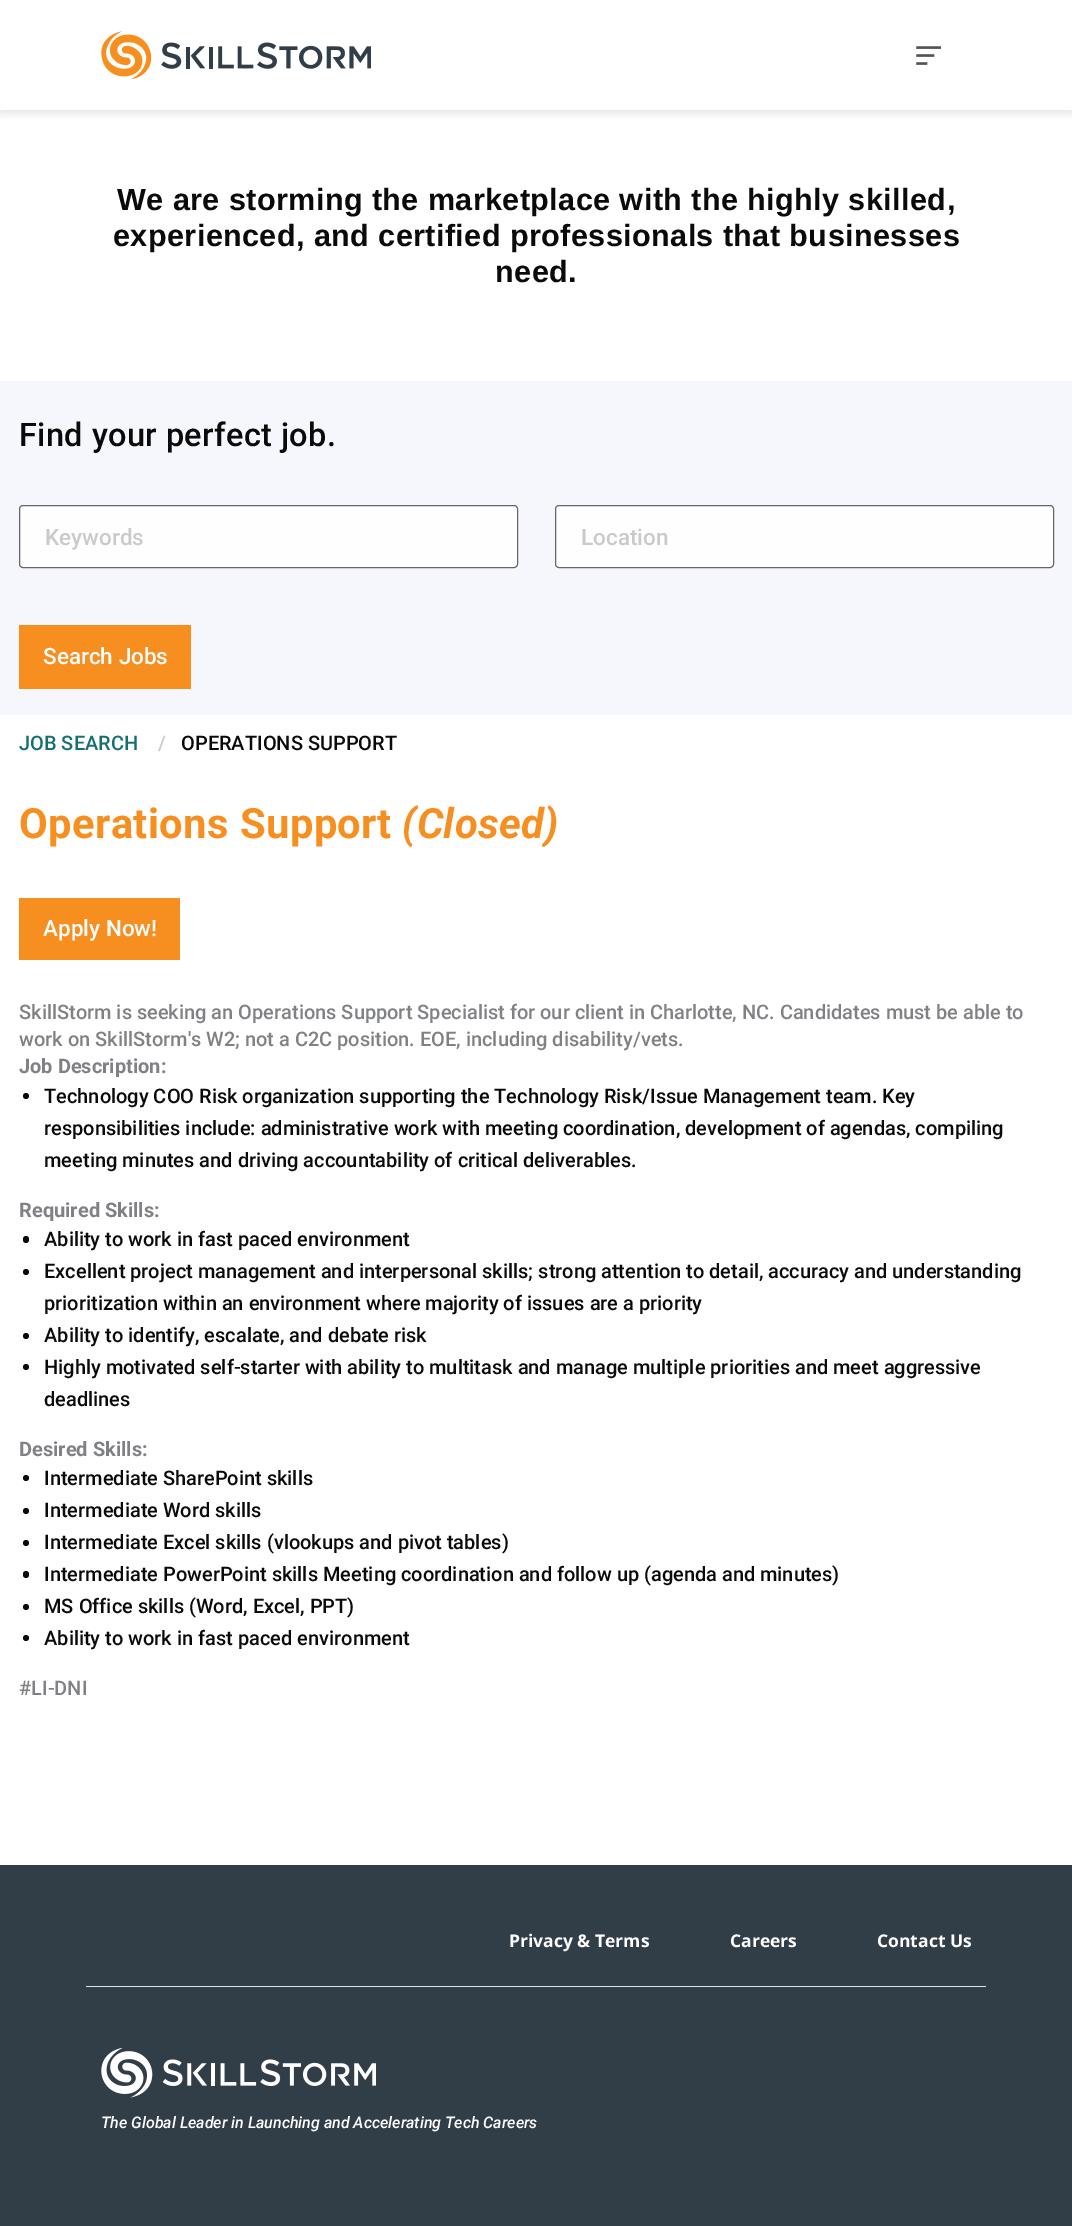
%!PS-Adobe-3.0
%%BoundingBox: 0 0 1072 2226
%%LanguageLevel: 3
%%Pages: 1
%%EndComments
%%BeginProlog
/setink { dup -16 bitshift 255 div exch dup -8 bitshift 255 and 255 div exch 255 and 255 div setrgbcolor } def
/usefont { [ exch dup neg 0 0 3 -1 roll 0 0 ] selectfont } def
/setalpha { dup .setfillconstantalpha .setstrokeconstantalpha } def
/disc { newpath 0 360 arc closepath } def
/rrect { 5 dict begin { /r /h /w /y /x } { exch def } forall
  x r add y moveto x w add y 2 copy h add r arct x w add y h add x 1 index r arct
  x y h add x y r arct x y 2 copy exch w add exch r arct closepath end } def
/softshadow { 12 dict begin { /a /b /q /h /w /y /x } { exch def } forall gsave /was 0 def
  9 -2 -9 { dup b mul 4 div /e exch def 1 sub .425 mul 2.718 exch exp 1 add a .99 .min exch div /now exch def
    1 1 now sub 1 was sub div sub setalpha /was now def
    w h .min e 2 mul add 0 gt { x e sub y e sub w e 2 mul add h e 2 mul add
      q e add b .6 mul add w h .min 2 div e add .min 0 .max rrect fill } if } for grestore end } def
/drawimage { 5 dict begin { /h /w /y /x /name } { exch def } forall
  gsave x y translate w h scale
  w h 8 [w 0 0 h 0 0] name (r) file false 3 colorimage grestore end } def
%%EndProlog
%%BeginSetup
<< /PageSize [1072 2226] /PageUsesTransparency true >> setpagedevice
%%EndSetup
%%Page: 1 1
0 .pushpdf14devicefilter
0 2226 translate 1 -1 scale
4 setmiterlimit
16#FFFFFF setink
0 0 1072 2226 rectfill
gsave
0 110 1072 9 rectclip
16#636363 setink
0 3 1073 110 0 5 0.2 softshadow
grestore
(img1.raw) 101 31 270 48 drawimage
(img2.raw) 916 46 25 19 drawimage
/LiberationSans-Bold 30.6 usefont
16#0A0A0A setink
117 210 moveto 0.4 0 (We are storming the marketplace with the highly skilled,) ashow
113 246 moveto 0.4 0 (experienced, and certified professionals that businesses) ashow
495 282 moveto 0.4 0 (need.) ashow
16#F6F7FD setink
0 381 1072 334 rectfill
/Roboto-Medium 32.5 usefont
16#0A0A0A setink
19 446 moveto 0.4 0 (Find your perfect job.) ashow
16#FEFEFE setink
19.5 505.5 498 62 3.5 rrect gsave fill grestore
16#666666 setink
stroke
/Roboto-Medium 22.5 usefont
16#CACACA setink
45 545 moveto (Keywords) show
16#FEFEFE setink
555.5 505.5 498 62 3.5 rrect gsave fill grestore
16#666666 setink
stroke
16#CACACA setink
581 545 moveto (Location) show
16#F78F20 setink
19 625 172 64 rectfill
16#FEFEFE setink
43 664 moveto (Search Jobs) show
/Roboto-Medium 20 usefont
16#177070 setink
19 750 moveto (JOB SEARCH) show
16#CACACA setink
158 750 moveto (/) show
16#0A0A0A setink
181 750 moveto (OPERATIONS SUPPORT) show
/Roboto-Bold 41.75 usefont
16#F78F20 setink
19 838 moveto 0.4 0 (Operations Support) ashow
/Roboto-BoldItalic 41.75 usefont
402 838 moveto 0.4 0 (\(Closed\)) ashow
19 898 161 62 rectfill
/Roboto-Medium 22.5 usefont
16#FEFEFE setink
43 936 moveto (Apply Now!) show
/Roboto-Medium 20 usefont
16#808184 setink
19 1019 moveto (SkillStorm is seeking an Operations Support Specialist for our client in Charlotte, NC. Candidates must be able to) show
19 1046 moveto (work on SkillStorm's W2; not a C2C position. EOE, including disability/vets.) show
/Roboto-Bold 20 usefont
19 1073 moveto (Job Description:) show
16#0A0A0A setink
26 1096 3 disc fill
/Roboto-Medium 20 usefont
[
    [(Technology COO Risk organization supporting the Technology Risk/Issue Management team. Key) 44 1103]
    [(responsibilities include: administrative work with meeting coordination, development of agendas, compiling) 44 1135]
    [(meeting minutes and driving accountability of critical deliverables.) 44 1167]
] { aload pop moveto show } forall
/Roboto-Bold 20 usefont
16#808184 setink
19 1217 moveto (Required Skills:) show
16#0A0A0A setink
23 1236 6 7 3 rrect fill
/Roboto-Medium 20 usefont
44 1246 moveto (Ability to work in fast paced environment) show
26 1272 3 disc fill
44 1278 moveto (Excellent project management and interpersonal skills; strong attention to detail, accuracy and understanding) show
44 1310 moveto (prioritization within an environment where majority of issues are a priority) show
26 1336 3 disc fill
44 1342 moveto (Ability to identify, escalate, and debate risk) show
26 1367 3 disc fill
44 1374 moveto (Highly motivated self-starter with ability to multitask and manage multiple priorities and meet aggressive) show
44 1406 moveto (deadlines) show
/Roboto-Bold 20 usefont
16#808184 setink
19 1456 moveto (Desired Skills:) show
16#0A0A0A setink
26 1478 3 disc fill
/Roboto-Medium 20 usefont
44 1485 moveto (Intermediate SharePoint skills) show
26 1511 3 disc fill
44 1517 moveto (Intermediate Word skills) show
26 1543 3 disc fill
44 1549 moveto (Intermediate Excel skills \(vlookups and pivot tables\)) show
23 1571 6 7 3 rrect fill
44 1581 moveto (Intermediate PowerPoint skills Meeting coordination and follow up \(agenda and minutes\)) show
26 1607 3 disc fill
44 1613 moveto (MS Office skills \(Word, Excel, PPT\)) show
26 1638 3 disc fill
44 1645 moveto (Ability to work in fast paced environment) show
16#808184 setink
19 1695 moveto (#LI-DNI) show
16#313E48 setink
0 1865 1072 361 rectfill
16#DEE2E6 setink
86 1986 900 1 rectfill
/OpenSans-Bold 17.5 usefont
16#FEFEFE setink
[
    [(Privacy & Terms) 509 1947]
    [(Careers) 730 1947]
    [(Contact Us) 877 1947]
] { aload pop moveto show } forall
(img3.raw) 101 2048 275 50 drawimage
/Roboto-MediumItalic 16 usefont
101 2128 moveto (The Global Leader in Launching and Accelerating Tech Careers) show
.poppdf14devicefilter showpage
%%EOF
